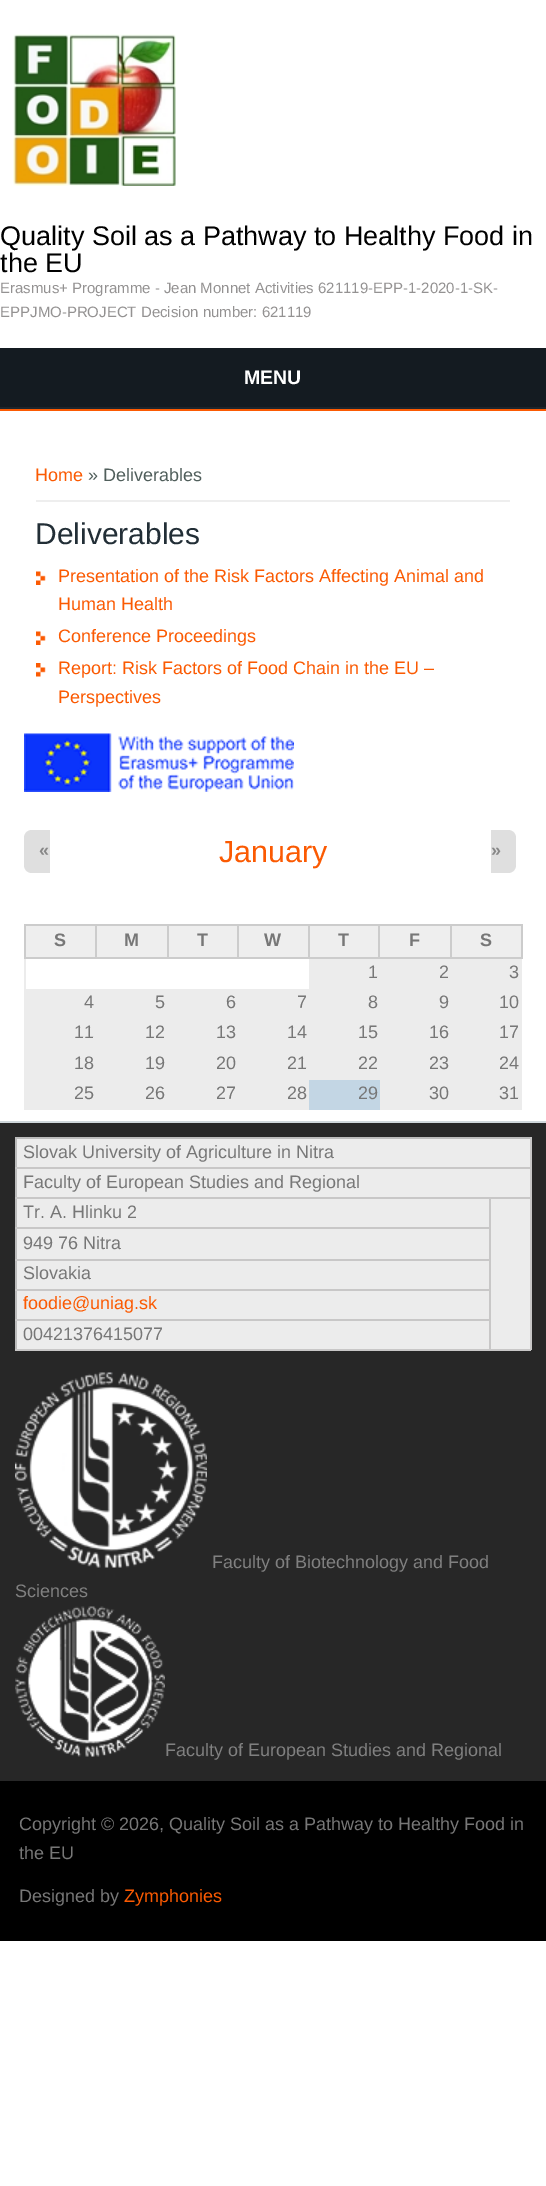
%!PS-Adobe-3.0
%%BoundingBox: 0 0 546 2186
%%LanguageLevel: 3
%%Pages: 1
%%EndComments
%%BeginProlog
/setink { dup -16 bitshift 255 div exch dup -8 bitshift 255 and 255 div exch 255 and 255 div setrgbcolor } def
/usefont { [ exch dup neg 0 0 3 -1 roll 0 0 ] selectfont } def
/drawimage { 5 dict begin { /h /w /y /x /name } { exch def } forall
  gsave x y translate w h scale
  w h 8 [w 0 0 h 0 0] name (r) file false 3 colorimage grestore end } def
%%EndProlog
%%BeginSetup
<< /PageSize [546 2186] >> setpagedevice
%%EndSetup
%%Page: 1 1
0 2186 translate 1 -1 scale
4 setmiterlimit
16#FFFFFF setink
0 0 546 2186 rectfill
(img1.raw) 13 34 163 152 drawimage
/LiberationSans-Regular 27 usefont
16#000000 setink
0 245 moveto (Quality Soil as a Pathway to Healthy Food in) show
0 272 moveto (the EU) show
/LiberationSans-Regular 15 usefont
16#949292 setink
0 293 moveto (Erasmus+ Programme - Jean Monnet Activities 621119-EPP-1-2020-1-SK-) show
0 317 moveto (EPPJMO-PROJECT Decision number: 621119) show
[
    [0 409 546 2 16#FB5A02]
    [0 348 546 59 16#141B21]
    [0 407 546 2 16#1E262D]
] { aload pop setink rectfill } forall
/LiberationSans-Bold 19.5 usefont
16#FFFFFF setink
244 384 moveto (MENU) show
16#EEEEEE setink
36 500 474 2 rectfill
/LiberationSans-Regular 18 usefont
16#FB5A02 setink
35 481 moveto (Home) show
16#515F5C setink
88 481 moveto (» Deliverables) show
/LiberationSans-Regular 30 usefont
16#222E36 setink
35 544 moveto (Deliverables) show
(img2.raw) 36 571 10 14 drawimage
/LiberationSans-Regular 18 usefont
16#FB5A02 setink
58 582 moveto (Presentation of the Risk Factors Affecting Animal and) show
58 610 moveto (Human Health) show
(img2.raw) 36 631 10 14 drawimage
58 642 moveto (Conference Proceedings) show
(img3.raw) 36 663 10 14 drawimage
58 674 moveto (Report: Risk Factors of Food Chain in the EU –) show
58 703 moveto (Perspectives) show
(img4.raw) 24 733 270 59 drawimage
/LiberationSans-Regular 30.5 usefont
219 862 moveto (January) show
16#DFDFDF setink
32 830 moveto 50 830 lineto 50 873 lineto 32 873 lineto 27.5 873 24 869.5 24 865 curveto 24 838 lineto 24 833.5 27.5 830 32 830 curveto closepath fill
/LiberationSans-Bold 18 usefont
16#888888 setink
39 856 moveto («) show
16#DFDFDF setink
491 830 moveto 508 830 lineto 512.5 830 516 833.5 516 838 curveto 516 865 lineto 516 869.5 512.5 873 508 873 curveto 491 873 lineto closepath fill
16#888888 setink
491 856 moveto (») show
[
    [24 959 498 151 16#ECECEC]
    [26 926 69 31 16#EEEEEE]
    [450 924 72 2 16#CCCCCC]
    [521 924 2 35 16#CCCCCC]
    [450 957 72 2 16#CCCCCC]
    [450 924 2 35 16#CCCCCC]
    [378 924 74 2 16#CCCCCC]
    [378 957 74 2 16#CCCCCC]
    [378 924 2 35 16#CCCCCC]
    [308 924 72 2 16#CCCCCC]
    [308 957 72 2 16#CCCCCC]
    [308 924 2 35 16#CCCCCC]
    [237 924 72 2 16#CCCCCC]
    [237 957 72 2 16#CCCCCC]
    [237 924 2 35 16#CCCCCC]
    [167 924 72 2 16#CCCCCC]
    [167 957 72 2 16#CCCCCC]
    [167 924 2 35 16#CCCCCC]
    [95 924 73 2 16#CCCCCC]
    [95 957 73 2 16#CCCCCC]
    [95 924 2 35 16#CCCCCC]
    [24 924 72 2 16#CCCCCC]
    [24 957 72 2 16#CCCCCC]
    [24 924 2 35 16#CCCCCC]
] { aload pop setink rectfill } forall
16#777777 setink
54 946 moveto (S) show
16#EEEEEE setink
97 926 70 31 rectfill
16#777777 setink
124 946 moveto (M) show
16#EEEEEE setink
169 926 68 31 rectfill
16#777777 setink
197 946 moveto (T) show
16#EEEEEE setink
239 926 69 31 rectfill
16#777777 setink
264 946 moveto (W) show
16#EEEEEE setink
310 926 68 31 rectfill
16#777777 setink
338 946 moveto (T) show
16#EEEEEE setink
380 926 70 31 rectfill
16#777777 setink
409 946 moveto (F) show
16#EEEEEE setink
452 926 69 31 rectfill
16#777777 setink
480 946 moveto (S) show
16#FFFFFF setink
26 959 283 30 rectfill
/LiberationSans-Regular 18 usefont
16#777777 setink
[
    [(1) 368 978]
    [(2) 439 978]
    [(3) 509 978]
    [(4) 84 1008]
    [(5) 155 1008]
    [(6) 226 1008]
    [(7) 297 1008]
    [(8) 368 1008]
    [(9) 439 1008]
    [(10) 499 1008]
    [(11) 74 1038]
    [(12) 145 1038]
    [(13) 216 1038]
    [(14) 287 1038]
    [(15) 358 1038]
    [(16) 429 1038]
    [(17) 499 1038]
    [(18) 74 1069]
    [(19) 145 1069]
    [(20) 216 1069]
    [(21) 287 1069]
    [(22) 358 1069]
    [(23) 429 1069]
    [(24) 499 1069]
    [(25) 74 1099]
    [(26) 145 1099]
    [(27) 216 1099]
    [(28) 287 1099]
] { aload pop moveto show } forall
16#C3D6E4 setink
309 1080 71 30 rectfill
16#777777 setink
[
    [(29) 358 1099]
    [(30) 429 1099]
    [(31) 499 1099]
] { aload pop moveto show } forall
[
    [0 1123 546 658 16#272727]
    [0 1121 546 2 16#CFD7DB]
    [17 1139 513 210 16#ECECEC]
    [15 1137 516 2 16#BBBBBB]
    [15 1137 2 213 16#BBBBBB]
    [530 1137 2 213 16#C8C7C7]
    [15 1167 516 2 16#C8C7C7]
] { aload pop setink rectfill } forall
16#777777 setink
23 1158 moveto (Slovak University of Agriculture in Nitra) show
16#C8C7C7 setink
489 1197 2 153 rectfill
15 1197 516 2 rectfill
16#777777 setink
23 1188 moveto (Faculty of European Studies and Regional) show
16#C8C7C7 setink
15 1227 476 2 rectfill
16#777777 setink
23 1218 moveto (Tr. A. Hlinku 2) show
[
    [15 1349 476 2 16#C8C7C7]
    [489 1349 42 2 16#C8C7C7]
    [15 1259 476 2 16#C8C7C7]
] { aload pop setink rectfill } forall
16#777777 setink
23 1249 moveto (949 76 Nitra) show
16#C8C7C7 setink
15 1289 476 2 rectfill
16#777777 setink
23 1279 moveto (Slovakia) show
16#C8C7C7 setink
15 1319 476 2 rectfill
16#FB5A02 setink
23 1309 moveto (foodie@uniag.sk) show
16#777777 setink
23 1340 moveto (00421376415077) show
(img5.raw) 15 1372 192 196 drawimage
16#808080 setink
212 1568 moveto (Faculty of Biotechnology and Food) show
15 1597 moveto (Sciences) show
(img6.raw) 15 1606 150 151 drawimage
165 1756 moveto (Faculty of European Studies and Regional) show
16#000000 setink
0 1781 546 160 rectfill
16#777777 setink
[
    [(Copyright © 2026, Quality Soil as a Pathway to Healthy Food in) 19 1830]
    [(the EU) 19 1859]
    [(Designed by) 19 1902]
] { aload pop moveto show } forall
16#FB5A02 setink
124 1902 moveto (Zymphonies) show
showpage
%%EOF
